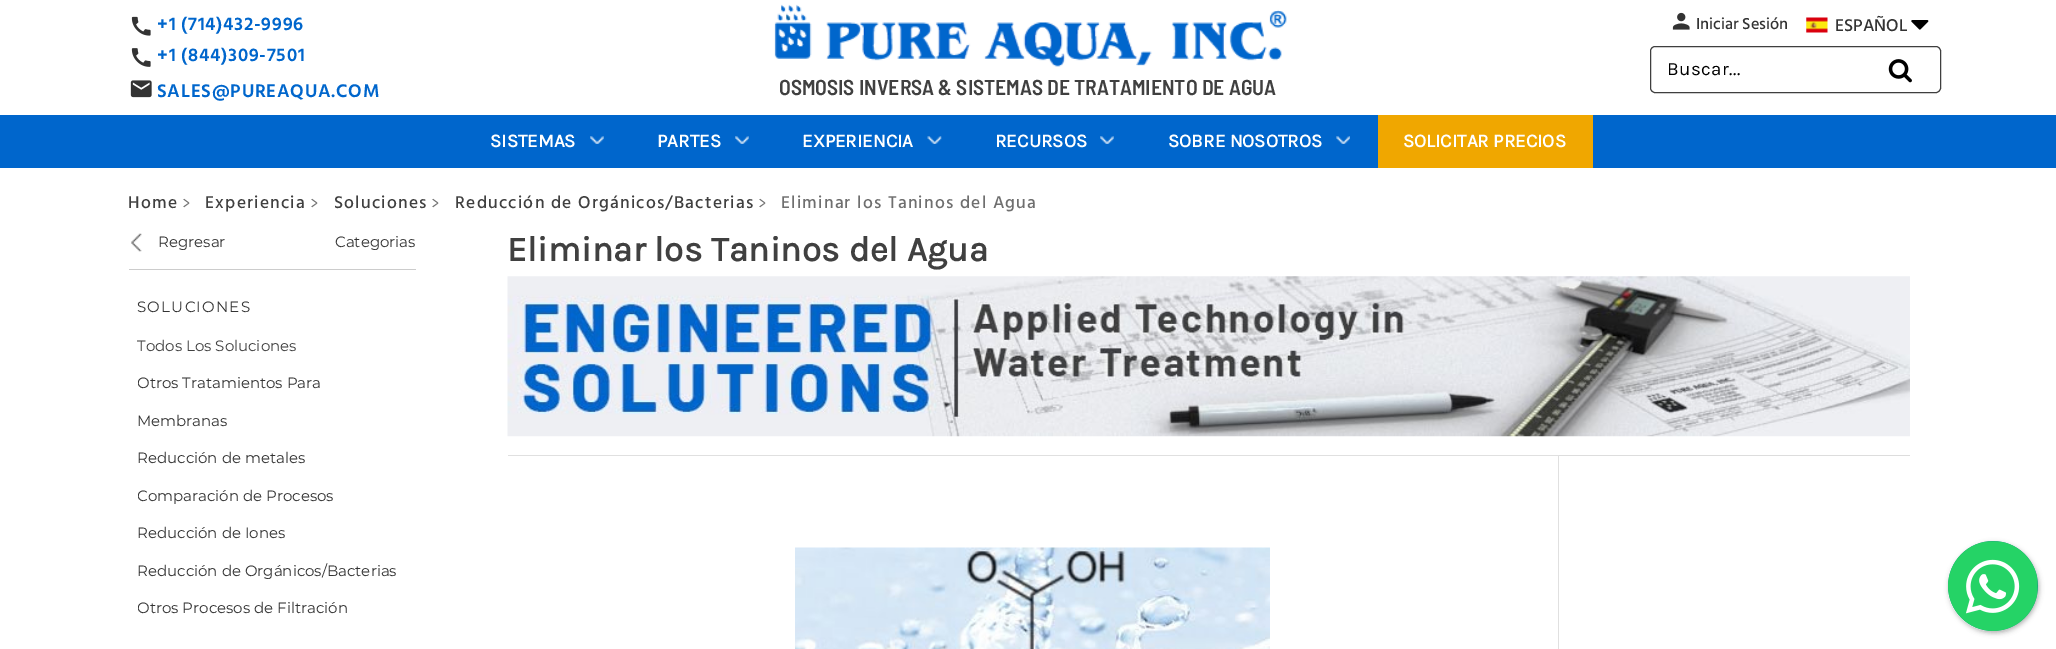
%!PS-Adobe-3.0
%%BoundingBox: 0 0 2056 649
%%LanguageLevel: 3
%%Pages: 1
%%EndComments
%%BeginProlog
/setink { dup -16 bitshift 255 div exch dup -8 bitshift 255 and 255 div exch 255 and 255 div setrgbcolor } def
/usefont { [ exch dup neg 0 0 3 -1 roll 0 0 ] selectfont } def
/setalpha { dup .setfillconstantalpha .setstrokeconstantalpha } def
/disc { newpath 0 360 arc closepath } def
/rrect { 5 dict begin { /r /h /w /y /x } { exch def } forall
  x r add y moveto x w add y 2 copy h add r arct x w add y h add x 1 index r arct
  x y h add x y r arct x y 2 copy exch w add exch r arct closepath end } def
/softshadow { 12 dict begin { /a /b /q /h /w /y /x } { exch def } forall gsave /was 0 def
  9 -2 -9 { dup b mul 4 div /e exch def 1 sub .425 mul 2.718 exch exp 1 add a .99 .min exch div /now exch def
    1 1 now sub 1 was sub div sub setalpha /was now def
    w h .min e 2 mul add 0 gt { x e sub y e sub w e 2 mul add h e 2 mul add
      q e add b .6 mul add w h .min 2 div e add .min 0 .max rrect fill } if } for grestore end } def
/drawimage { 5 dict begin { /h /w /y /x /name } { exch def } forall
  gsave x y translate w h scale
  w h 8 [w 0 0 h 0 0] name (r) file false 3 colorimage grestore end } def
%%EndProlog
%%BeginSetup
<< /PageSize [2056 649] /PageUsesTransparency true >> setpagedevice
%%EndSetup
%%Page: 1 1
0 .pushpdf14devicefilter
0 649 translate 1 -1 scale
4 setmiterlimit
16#FFFFFF setink
0 0 2056 649 rectfill
(img1.raw) 131 16 20 20 drawimage
/HindSiliguri-SemiBold 18.75 usefont
16#0066CC setink
157 30 moveto 0.75 0 (+1 \(714\)432-9996) ashow
(img2.raw) 131 48 20 19 drawimage
157 61 moveto 0.75 0 (+1 \(844\)309-7501) ashow
(img3.raw) 130 80 22 18 drawimage
157 97 moveto 0.75 0 (SALES@PUREAQUA.COM) ashow
(img4.raw) 774 4 513 63 drawimage
/BarlowSemiCondensed-SemiBold 21.6 usefont
16#404040 setink
779 95 moveto (OSMOSIS INVERSA & SISTEMAS DE TRATAMIENTO DE AGUA) show
(img5.raw) 1672 12 18 18 drawimage
/HindSiliguri-Medium 16.25 usefont
16#333333 setink
1696 29 moveto (Iniciar Sesión) show
(img6.raw) 1806 17 22 16 drawimage
/HindSiliguri-Medium 17.5 usefont
1835 31 moveto (ESPAÑOL) show
(img7.raw) 1911 20 18 10 drawimage
16#3F3F3F setink
1650.5 46.5 290 46 4.5 rrect stroke
/Karla-Regular 18.75 usefont
16#000000 setink
1667 75 moveto 0.4 0 (Buscar...) ashow
(img8.raw) 1888 59 24 24 drawimage
16#0066CC setink
0 115 2056 53 rectfill
/Karla-Bold 18.75 usefont
16#FFFFFF setink
490 147 moveto (SISTEMAS) show
(img9.raw) 590 136 14 8 drawimage
657 147 moveto (PARTES) show
(img10.raw) 735 136 14 8 drawimage
802 147 moveto (EXPERIENCIA) show
(img11.raw) 927 136 15 8 drawimage
995 147 moveto (RECURSOS) show
(img10.raw) 1100 136 14 8 drawimage
1168 147 moveto (SOBRE NOSOTROS) show
(img12.raw) 1336 136 14 8 drawimage
16#F0A700 setink
1378 115 215 53 rectfill
16#FFFFFF setink
1403 147 moveto (SOLICITAR PRECIOS) show
/HindSiliguri-Medium 17.5 usefont
16#404040 setink
128 208 moveto 1.25 0 (Home) ashow
/Karla-Regular 16.25 usefont
16#757575 setink
182 208 moveto (>) show
/HindSiliguri-Medium 17.5 usefont
16#404040 setink
205 208 moveto 1.25 0 (Experiencia) ashow
/Karla-Regular 16.25 usefont
16#757575 setink
310 208 moveto (>) show
/HindSiliguri-Medium 17.5 usefont
16#404040 setink
334 208 moveto 1.25 0 (Soluciones) ashow
/Karla-Regular 16.25 usefont
16#757575 setink
431 208 moveto (>) show
/HindSiliguri-Medium 17.5 usefont
16#404040 setink
455 208 moveto 1.25 0 (Reducción de Orgánicos/Bacterias) ashow
/Karla-Regular 16.25 usefont
16#757575 setink
758 208 moveto (>) show
/HindSiliguri-Medium 17.5 usefont
16#6F6F6F setink
781 208 moveto 1.25 0 (Eliminar los Taninos del Agua) ashow
16#CCCCCC setink
129 269 287 1 rectfill
(img13.raw) 131 233 11 19 drawimage
/Montserrat-Regular 15 usefont
16#333333 setink
158 247 moveto (Regresar) show
335 247 moveto (Categorias) show
137 312 moveto 1.25 0 (SOLUCIONES) ashow
16#404040 setink
137 351 moveto (Todos Los Soluciones) show
gsave
138 270 270 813 rectclip
16#333333 setink
137 388 moveto (Otros Tratamientos Para) show
grestore
16#333333 setink
137 426 moveto (Membranas) show
137 463 moveto (Reducción de metales) show
gsave
138 270 270 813 rectclip
137 501 moveto (Comparación de Procesos) show
grestore
137 538 moveto (Reducción de Iones) show
137 576 moveto (Reducción de Orgánicos/Bacterias) show
gsave
138 270 270 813 rectclip
137 613 moveto (Otros Procesos de Filtración) show
grestore
/Karla-Bold 35 usefont
16#404040 setink
507 261 moveto 0.3 0 (Eliminar los Taninos del Agua) ashow
(img14.raw) 507 276 1403 161 drawimage
16#E0E0E0 setink
508 455 1051 1 rectfill
1558 455 1 194 rectfill
(img15.raw) 795 547 475 102 drawimage
16#DDDDDD setink
1559 455 351 1 rectfill
16#3C3C3C setink
1949 543 90 90 45 2.5 0.4 softshadow
16#128C7E setink
1993 586 45 disc fill
(img16.raw) 1948 541 90 90 drawimage
.poppdf14devicefilter showpage
%%EOF
